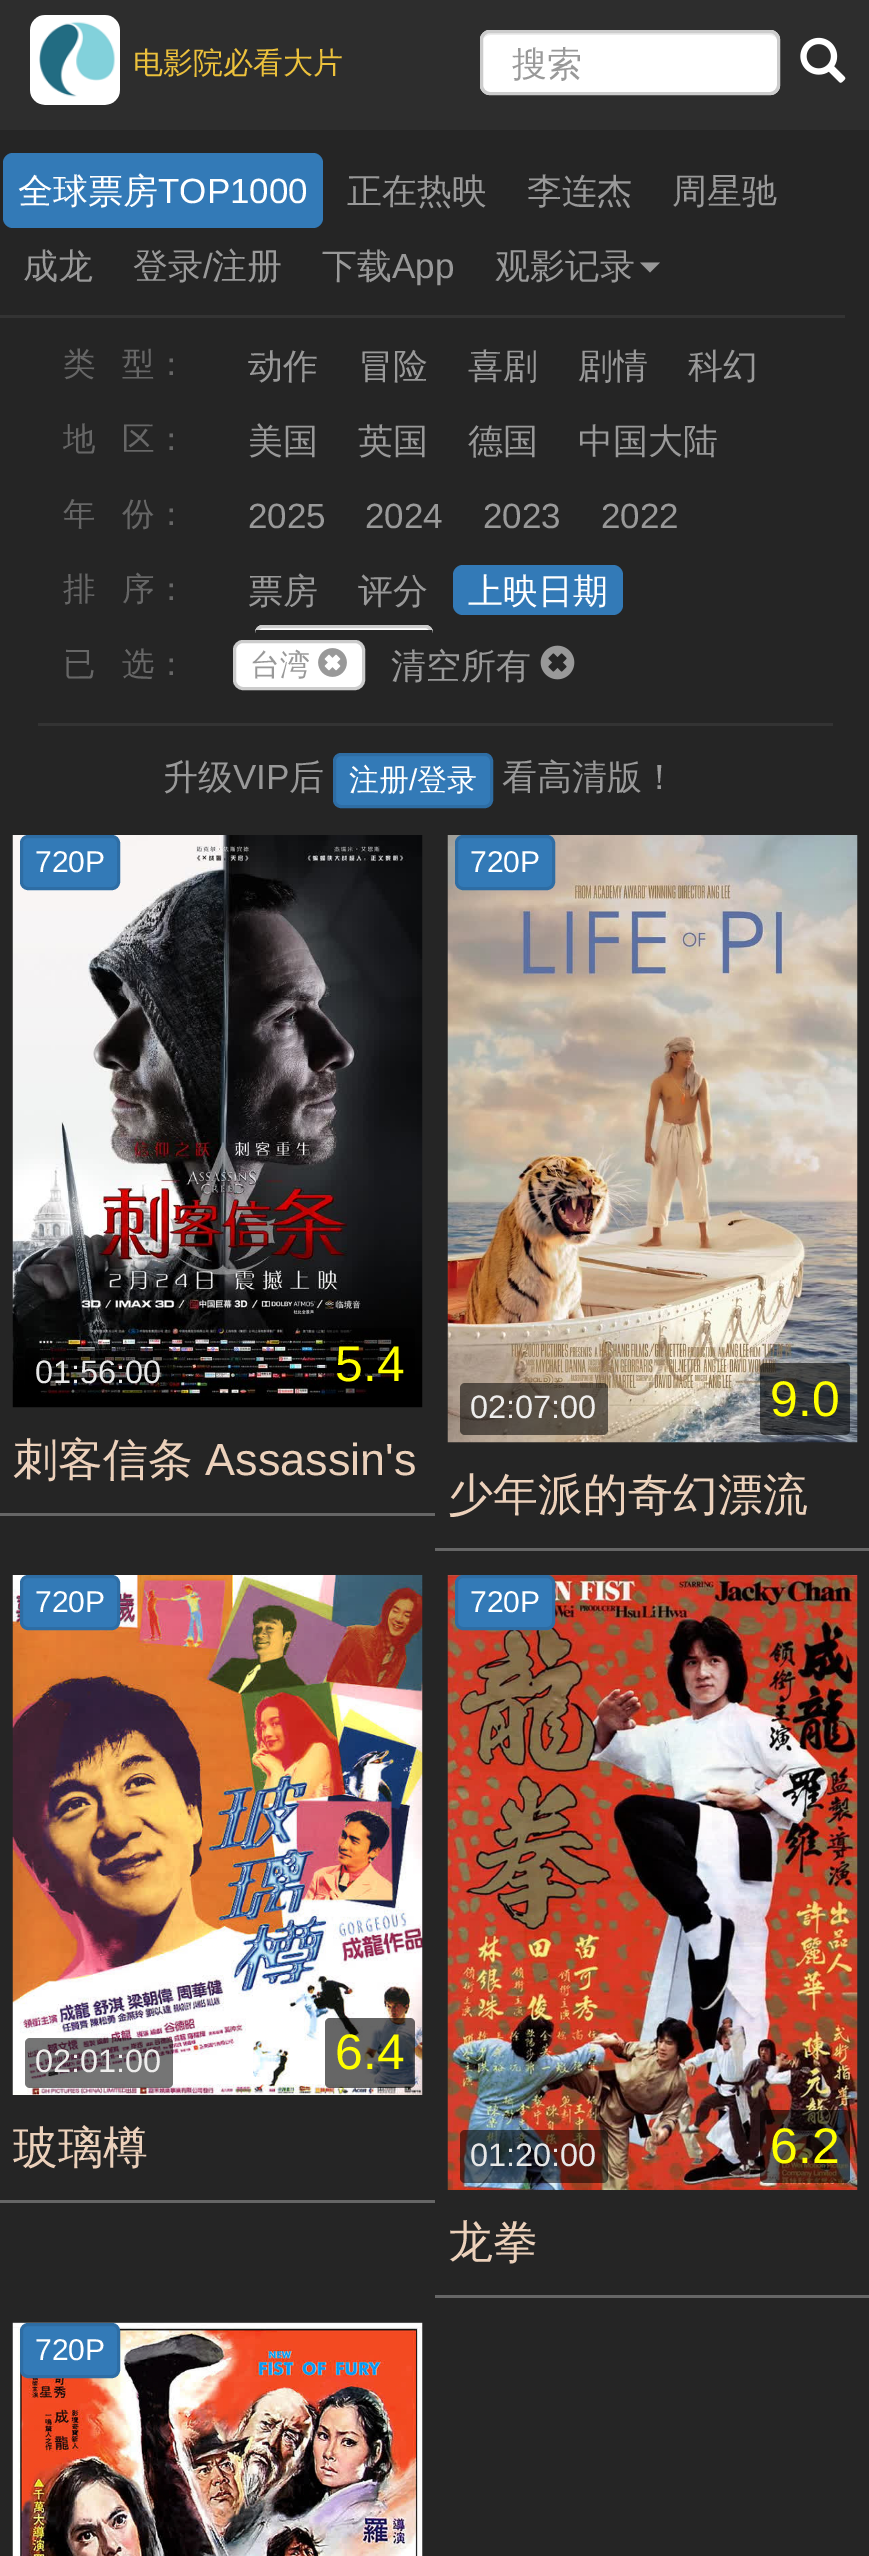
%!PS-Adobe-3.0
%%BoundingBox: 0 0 869 2556
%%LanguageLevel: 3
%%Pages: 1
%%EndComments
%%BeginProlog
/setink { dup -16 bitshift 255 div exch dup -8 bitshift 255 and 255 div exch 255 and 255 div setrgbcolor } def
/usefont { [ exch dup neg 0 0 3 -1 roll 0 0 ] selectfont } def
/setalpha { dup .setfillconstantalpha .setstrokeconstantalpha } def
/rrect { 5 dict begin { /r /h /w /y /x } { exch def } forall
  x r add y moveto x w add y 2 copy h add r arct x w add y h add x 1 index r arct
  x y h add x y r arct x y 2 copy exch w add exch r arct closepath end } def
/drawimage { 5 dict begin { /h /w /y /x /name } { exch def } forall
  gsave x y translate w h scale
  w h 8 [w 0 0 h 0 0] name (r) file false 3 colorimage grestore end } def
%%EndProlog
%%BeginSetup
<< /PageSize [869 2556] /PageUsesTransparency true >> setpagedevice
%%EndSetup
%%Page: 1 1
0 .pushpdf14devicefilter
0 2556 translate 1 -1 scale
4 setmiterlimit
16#252525 setink
0 0 869 2556 rectfill
16#2D2D2D setink
0 0 869 130 rectfill
(img1.raw) 30 15 90 90 drawimage
/WenQuanYiZenHei-Medium 30 usefont
16#ECC13C setink
133 73 moveto (电影院必看大片) show
16#FFFFFF setink
480 30 300 65 10 rrect fill
16#ECECEC setink
490 35 moveto 770 35 lineto 774 35 778 38 778 42 curveto 778 37 775 33 770 33 curveto 490 33 lineto 487 33 485 35 484 38 curveto 485 36 488 35 490 35 curveto closepath fill
16#CCCCCC setink
3 setlinewidth
481.5 31.5 297 62 8.5 rrect stroke
/WenQuanYiZenHei-Medium 35 usefont
16#999999 setink
512 76 moveto (搜索) show
(img2.raw) 800 37 46 46 drawimage
16#333333 setink
0 315 845 3 rectfill
16#337AB7 setink
3 153 320 75 10 rrect fill
16#FFFFFF setink
18 203 moveto (全球票房) show
/LiberationSans-Regular 35 usefont
158 203 moveto (TOP1000) show
/WenQuanYiZenHei-Medium 35 usefont
16#999999 setink
[
    [(正在热映) 347 203]
    [(李连杰) 527 203]
    [(周星驰) 672 203]
    [(成龙) 23 278]
    [(登录) 133 278]
] { aload pop moveto show } forall
/LiberationSans-Regular 35 usefont
203 278 moveto (/) show
/WenQuanYiZenHei-Medium 35 usefont
212 278 moveto (注册) show
322 278 moveto (下载) show
/LiberationSans-Regular 35 usefont
392 278 moveto (App) show
/WenQuanYiZenHei-Medium 35 usefont
495 278 moveto (观影记录) show
640 262.5 moveto 660 262.5 lineto 650 272.5 lineto closepath fill
16#333333 setink
38 723 795 3 rectfill
/WenQuanYiZenHei-Medium 32.5 usefont
16#666666 setink
63 375 moveto (类) show
122 375 moveto (型：) show
/WenQuanYiZenHei-Medium 35 usefont
16#999999 setink
[
    [(动作) 248 378]
    [(冒险) 358 378]
    [(喜剧) 468 378]
    [(剧情) 578 378]
    [(科幻) 688 378]
] { aload pop moveto show } forall
gsave
63 405 745 75 rectclip
/WenQuanYiZenHei-Medium 32.5 usefont
16#666666 setink
63 450 moveto (地) show
grestore
/WenQuanYiZenHei-Medium 32.5 usefont
16#666666 setink
122 450 moveto (区：) show
/WenQuanYiZenHei-Medium 35 usefont
16#999999 setink
[
    [(美国) 248 453]
    [(英国) 358 453]
    [(德国) 468 453]
    [(中国大陆) 578 453]
] { aload pop moveto show } forall
/WenQuanYiZenHei-Medium 32.5 usefont
16#666666 setink
63 525 moveto (年) show
122 525 moveto (份：) show
/LiberationSans-Regular 35 usefont
16#999999 setink
[
    [(2025) 248 528]
    [(2024) 365 528]
    [(2023) 483 528]
    [(2022) 601 528]
] { aload pop moveto show } forall
/WenQuanYiZenHei-Medium 32.5 usefont
16#666666 setink
63 600 moveto (排) show
122 600 moveto (序：) show
/WenQuanYiZenHei-Medium 35 usefont
16#999999 setink
248 603 moveto (票房) show
358 603 moveto (评分) show
16#337AB7 setink
453 565 170 50 10 rrect fill
16#FFFFFF setink
468 603 moveto (上映日期) show
263 625 moveto 425 625 lineto 429.5 625 433 628.5 433 633 curveto 433 630 lineto 255 630 lineto 255 633 lineto 255 628.5 258.5 625 263 625 curveto closepath fill
gsave
63 555 745 75 rectclip
16#CCCCCC setink
256.5 626.5 175 52 6.5 rrect stroke
grestore
/WenQuanYiZenHei-Medium 32.5 usefont
16#666666 setink
63 675 moveto (已) show
122 675 moveto (选：) show
16#FFFFFF setink
234.5 641.5 129 47 8.5 rrect gsave fill grestore
16#CCCCCC setink
stroke
/WenQuanYiZenHei-Medium 30 usefont
16#999999 setink
250 675 moveto (台湾) show
(img3.raw) 318 648 29 29 drawimage
/WenQuanYiZenHei-Medium 35 usefont
391 678 moveto (清空所有) show
(img4.raw) 540 645 35 35 drawimage
163 789 moveto (升级) show
/LiberationSans-Regular 35 usefont
233 789 moveto (VIP) show
/WenQuanYiZenHei-Medium 35 usefont
289 789 moveto (后) show
16#337AB7 setink
334.5 754.5 157 52 6.5 rrect gsave fill grestore
16#2E6DA4 setink
stroke
/WenQuanYiZenHei-Medium 30 usefont
16#FFFFFF setink
349 790 moveto (注册) show
/LiberationSans-Regular 30 usefont
409 790 moveto (/) show
/WenQuanYiZenHei-Medium 30 usefont
417 790 moveto (登录) show
/WenQuanYiZenHei-Medium 35 usefont
16#999999 setink
502 789 moveto (看高清版！) show
16#666666 setink
0 1513 435 3 rectfill
(img5.raw) 12 835 411 573 drawimage
16#337AB7 setink
21.5 836.5 97 52 6.5 rrect gsave fill grestore
16#2E6DA4 setink
stroke
/LiberationSans-Regular 30 usefont
16#FFFFFF setink
35 872 moveto (720P) show
0.54 setalpha
16#000000 setink
25 1348 148 52 5 rrect fill
/LiberationSans-Regular 32.5 usefont
1 setalpha
16#E7E7E7 setink
35 1383 moveto (01:56:00) show
0.6 setalpha
16#000000 setink
325 1328 90 72 5 rrect fill
/LiberationSans-Regular 50 usefont
1 setalpha
16#FFFF00 setink
335 1381 moveto (5.4) show
/WenQuanYiZenHei-Medium 45 usefont
16#ECD1BB setink
13 1475 moveto (刺客信条) show
/LiberationSans-Regular 45 usefont
205 1475 moveto (Assassin's) show
16#666666 setink
435 1548 434 3 rectfill
(img6.raw) 447 835 411 608 drawimage
16#337AB7 setink
456.5 836.5 97 52 6.5 rrect gsave fill grestore
16#2E6DA4 setink
stroke
/LiberationSans-Regular 30 usefont
16#FFFFFF setink
470 872 moveto (720P) show
0.54 setalpha
16#000000 setink
460 1383 148 52 5 rrect fill
/LiberationSans-Regular 32.5 usefont
1 setalpha
16#EEEDEC setink
470 1418 moveto (02:07:00) show
0.6 setalpha
16#000000 setink
760 1363 90 72 5 rrect fill
/LiberationSans-Regular 50 usefont
1 setalpha
16#FFFF00 setink
770 1416 moveto (9.0) show
/WenQuanYiZenHei-Medium 45 usefont
16#ECD1BB setink
448 1510 moveto (少年派的奇幻漂流) show
16#666666 setink
0 2200 435 3 rectfill
(img7.raw) 12 1575 411 520 drawimage
16#337AB7 setink
21.5 1576.5 97 52 6.5 rrect gsave fill grestore
16#2E6DA4 setink
stroke
/LiberationSans-Regular 30 usefont
16#FFFFFF setink
35 1612 moveto (720P) show
0.54 setalpha
16#000000 setink
25 2038 148 50 5 rrect fill
/LiberationSans-Regular 32.5 usefont
1 setalpha
16#EEEDEC setink
35 2072 moveto (02:01:00) show
0.6 setalpha
16#000000 setink
325 2018 90 70 5 rrect fill
/LiberationSans-Regular 50 usefont
1 setalpha
16#FFFF00 setink
335 2069 moveto (6.4) show
gsave
13 2120 410 55 rectclip
/WenQuanYiZenHei-Medium 45 usefont
16#ECD1BB setink
13 2163 moveto (玻璃樽) show
grestore
16#666666 setink
435 2295 434 3 rectfill
(img8.raw) 447 1575 411 615 drawimage
16#337AB7 setink
456.5 1576.5 97 52 6.5 rrect gsave fill grestore
16#2E6DA4 setink
stroke
/LiberationSans-Regular 30 usefont
16#FFFFFF setink
470 1612 moveto (720P) show
0.54 setalpha
16#000000 setink
460 2130 148 53 5 rrect fill
/LiberationSans-Regular 32.5 usefont
1 setalpha
16#E7E7E7 setink
470 2166 moveto (01:20:00) show
0.6 setalpha
16#000000 setink
760 2110 90 73 5 rrect fill
/LiberationSans-Regular 50 usefont
1 setalpha
16#FFFF00 setink
770 2163 moveto (6.2) show
/WenQuanYiZenHei-Medium 45 usefont
16#ECD1BB setink
448 2257 moveto (龙拳) show
(img9.raw) 12 2322 411 234 drawimage
16#337AB7 setink
21.5 2324.5 97 52 6.5 rrect gsave fill grestore
16#2E6DA4 setink
stroke
/LiberationSans-Regular 30 usefont
16#FFFFFF setink
35 2360 moveto (720P) show
.poppdf14devicefilter showpage
%%EOF
